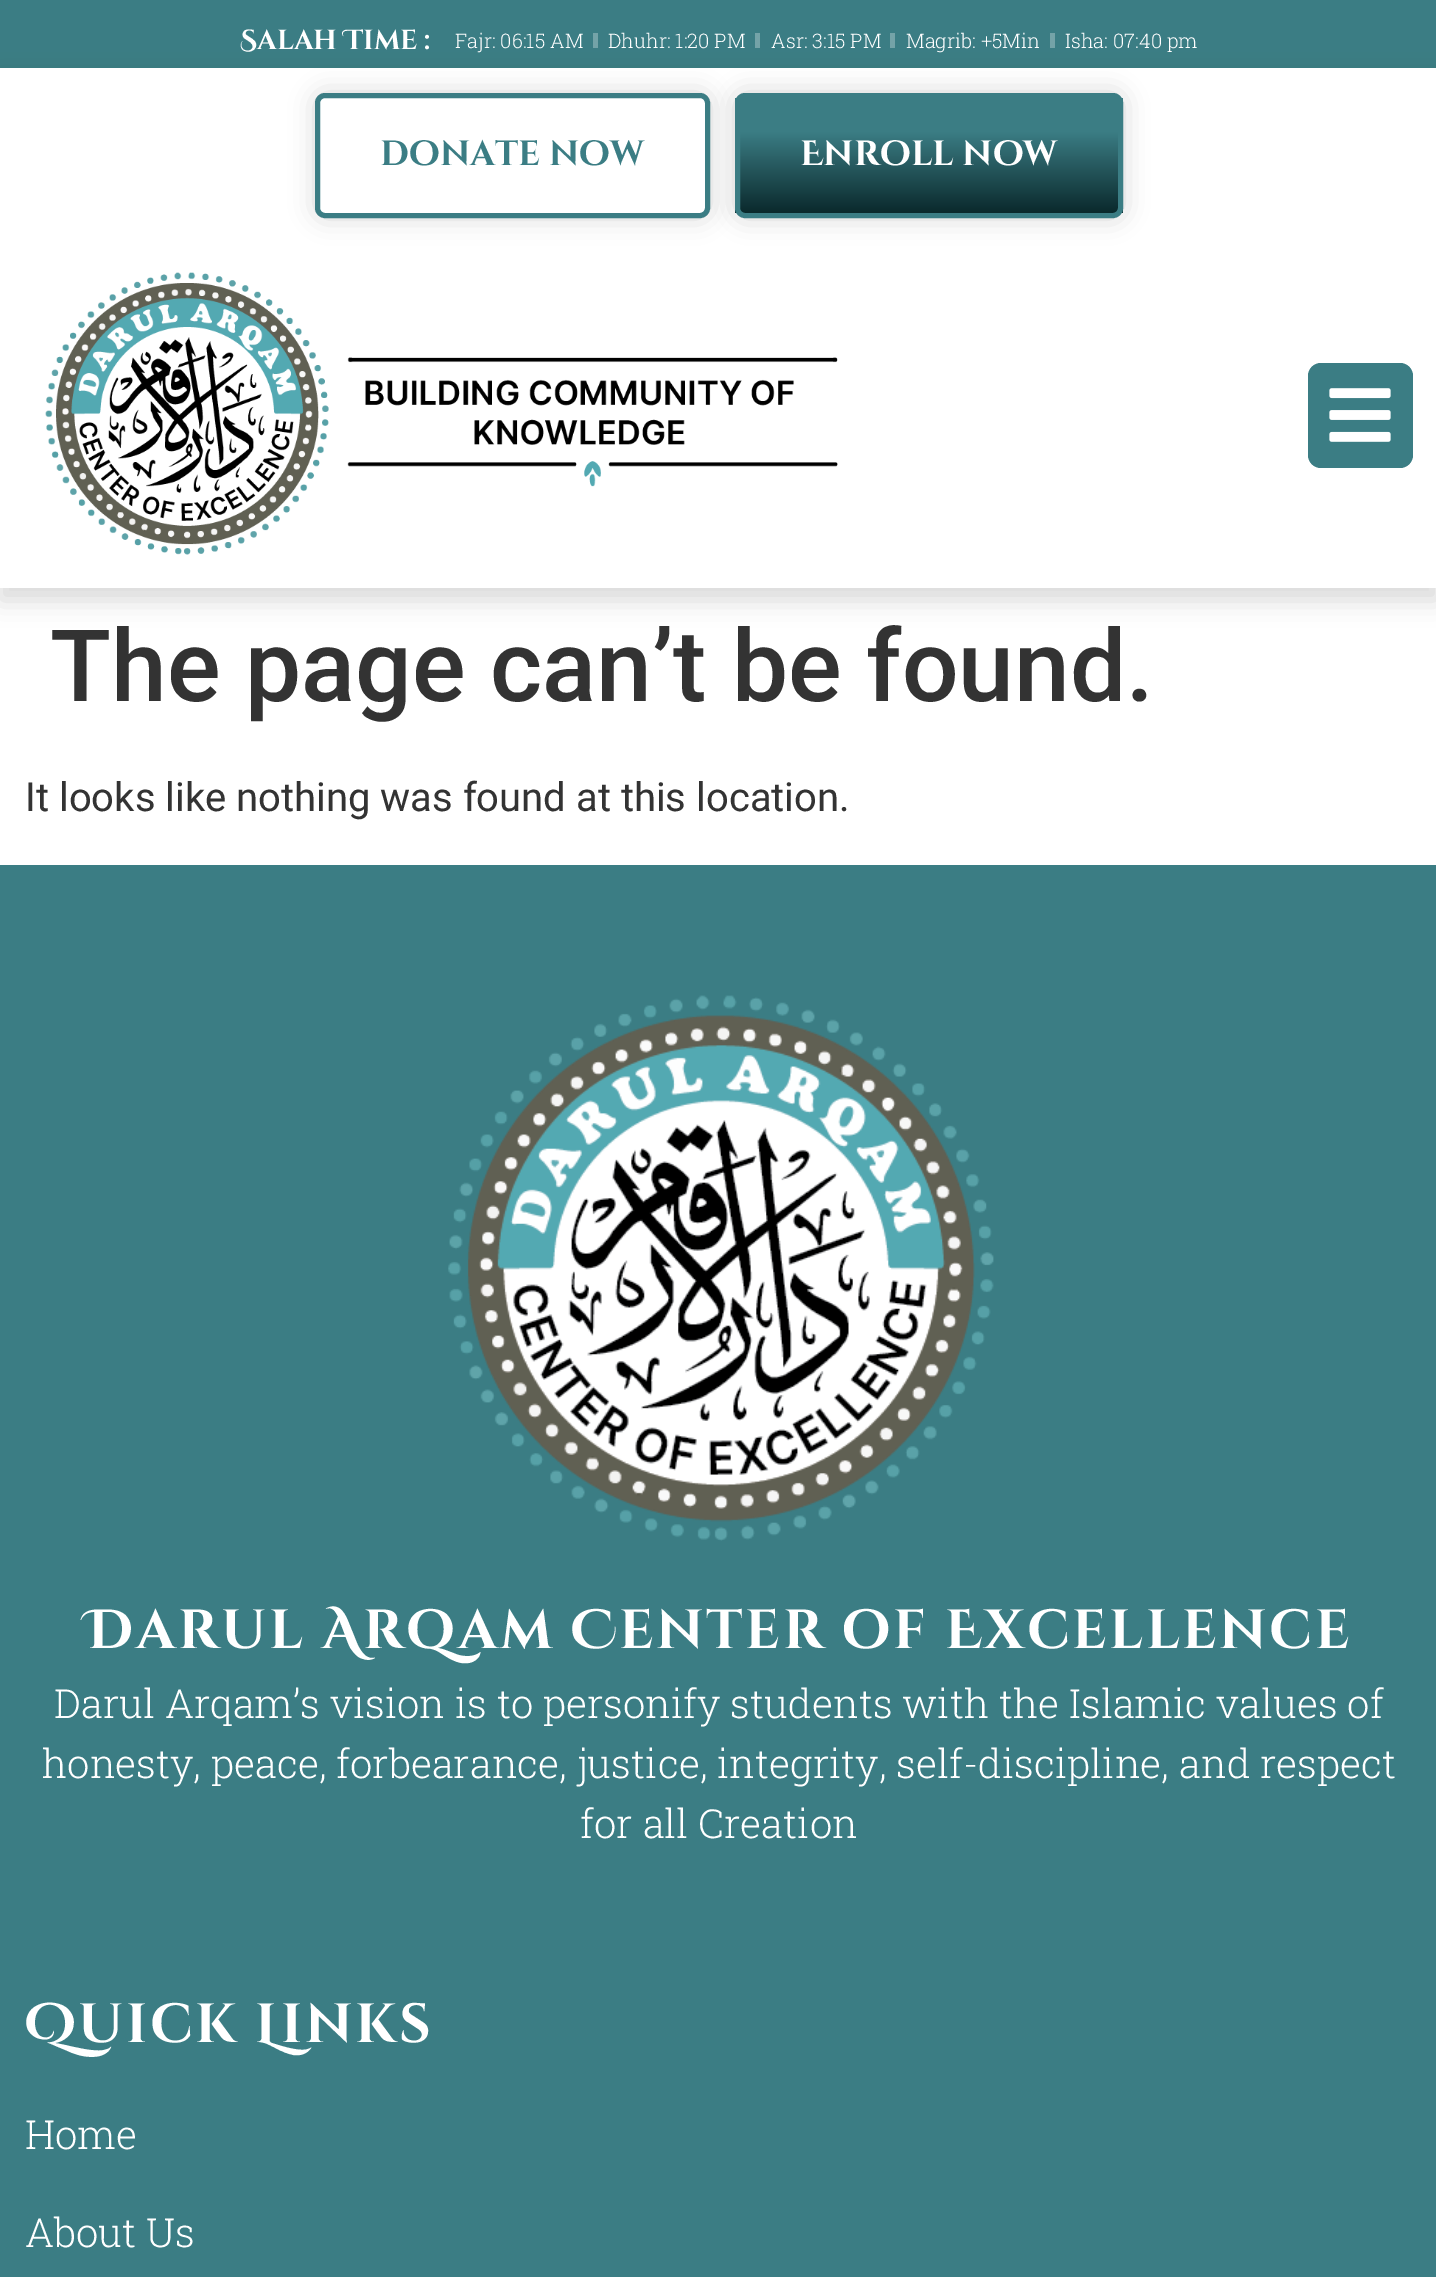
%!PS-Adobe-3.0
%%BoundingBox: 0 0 1436 2277
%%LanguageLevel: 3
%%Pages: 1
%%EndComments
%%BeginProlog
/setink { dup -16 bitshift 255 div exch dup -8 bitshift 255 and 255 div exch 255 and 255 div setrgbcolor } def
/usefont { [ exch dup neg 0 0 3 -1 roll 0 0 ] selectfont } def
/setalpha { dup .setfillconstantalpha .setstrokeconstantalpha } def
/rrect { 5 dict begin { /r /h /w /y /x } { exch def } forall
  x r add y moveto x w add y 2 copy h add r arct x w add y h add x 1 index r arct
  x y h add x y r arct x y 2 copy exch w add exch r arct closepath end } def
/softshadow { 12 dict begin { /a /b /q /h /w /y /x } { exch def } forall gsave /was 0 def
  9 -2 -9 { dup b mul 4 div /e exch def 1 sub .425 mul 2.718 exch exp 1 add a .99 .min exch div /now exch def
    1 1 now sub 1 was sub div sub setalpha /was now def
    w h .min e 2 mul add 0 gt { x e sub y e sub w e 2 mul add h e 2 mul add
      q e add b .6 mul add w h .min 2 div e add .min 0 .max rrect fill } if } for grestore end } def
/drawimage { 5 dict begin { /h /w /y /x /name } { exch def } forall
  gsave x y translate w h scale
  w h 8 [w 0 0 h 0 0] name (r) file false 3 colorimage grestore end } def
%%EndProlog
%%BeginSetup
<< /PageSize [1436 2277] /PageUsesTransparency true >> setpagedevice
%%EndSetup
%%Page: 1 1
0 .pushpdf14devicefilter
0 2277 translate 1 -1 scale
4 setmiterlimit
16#FFFFFF setink
0 0 1436 2277 rectfill
16#3B7D84 setink
0 0 1436 68 rectfill
/CinzelDecorative-Bold 27.5 usefont
16#FFFFFF setink
240 49 moveto (Salah Time :) show
/RobotoSlab-Light 20 usefont
455 48 moveto (Fajr: 06:15 AM) show
16#74A3A8 setink
593 33 5 15 rectfill
16#FFFFFF setink
608 48 moveto (Dhuhr: 1:20 PM) show
16#74A3A8 setink
755 33 5 15 rectfill
16#FFFFFF setink
771 48 moveto (Asr: 3:15 PM) show
16#74A3A8 setink
890 33 5 15 rectfill
16#FFFFFF setink
906 48 moveto (Magrib: +5Min) show
16#74A3A8 setink
1050 33 5 15 rectfill
16#FFFFFF setink
1065 48 moveto (Isha: 07:40 pm) show
16#000000 setink
0 80 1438 520 0 12.5 0.15 softshadow
16#FFFFFF setink
0 68 1436 520 rectfill
16#000000 setink
315 93 395 125 10 12.5 0.16 softshadow
16#FFFFFF setink
317.5 95.5 390 120 7.5 rrect gsave fill grestore
16#3B7D84 setink
5 setlinewidth
stroke
/CinzelDecorative-Bold 35 usefont
380 165 moveto (donate now) show
16#000000 setink
735 93 388 125 10 12.5 0.17 softshadow
gsave
735 93 388 125 10 rrect clip newpath
gsave 735 98 moveto 1123 98 lineto 1123 213 lineto 735 213 lineto closepath clip newpath
<< /ShadingType 2 /ColorSpace /DeviceRGB /Coords [929 97 929 213] /Extend [true true] /Function << /FunctionType 3 /Domain [0 1] /Functions [<< /FunctionType 2 /Domain [0 1] /C0 [0.231 0.49 0.518] /C1 [0.231 0.49 0.518] /N 1 >> << /FunctionType 2 /Domain [0 1] /C0 [0.231 0.49 0.518] /C1 [0.039 0.161 0.173] /N 1 >>] /Bounds [0.3] /Encode [0 1 0 1] >> >> shfill grestore
grestore
16#3B7D84 setink
737.5 95.5 383 120 7.5 rrect stroke
16#FFFFFF setink
800 165 moveto (Enroll now) show
(img1.raw) 45 272 793 283 drawimage
16#3B7D84 setink
1308 363 105 105 13 rrect fill
(img2.raw) 1329 388 62 54 drawimage
/Roboto-Medium 100 usefont
16#333333 setink
50 701 moveto (The page can’t be found.) show
/Roboto-Regular 40 usefont
25 811 moveto (It looks like nothing was found at this location.) show
16#3B7D84 setink
0 865 1436 1412 rectfill
(img3.raw) 448 995 546 546 drawimage
/CinzelDecorative-Bold 55 usefont
16#FFFFFF setink
86 1648 moveto 2.5 0 (Darul Arqam Center of Excellence) ashow
/RobotoSlab-Light 40 usefont
[
    [(Darul Arqam’s vision is to personify students with the Islamic values of) 54 1718]
    [(honesty, peace, forbearance, justice, integrity, self-discipline, and respect) 42 1778]
    [(for all Creation) 580 1838]
] { aload pop moveto show } forall
/CinzelDecorative-Bold 55 usefont
25 2042 moveto 2.5 0 (Quick Links) ashow
/RobotoSlab-Light 40 usefont
25 2149 moveto (Home) show
25 2247 moveto (About Us) show
.poppdf14devicefilter showpage
%%EOF
